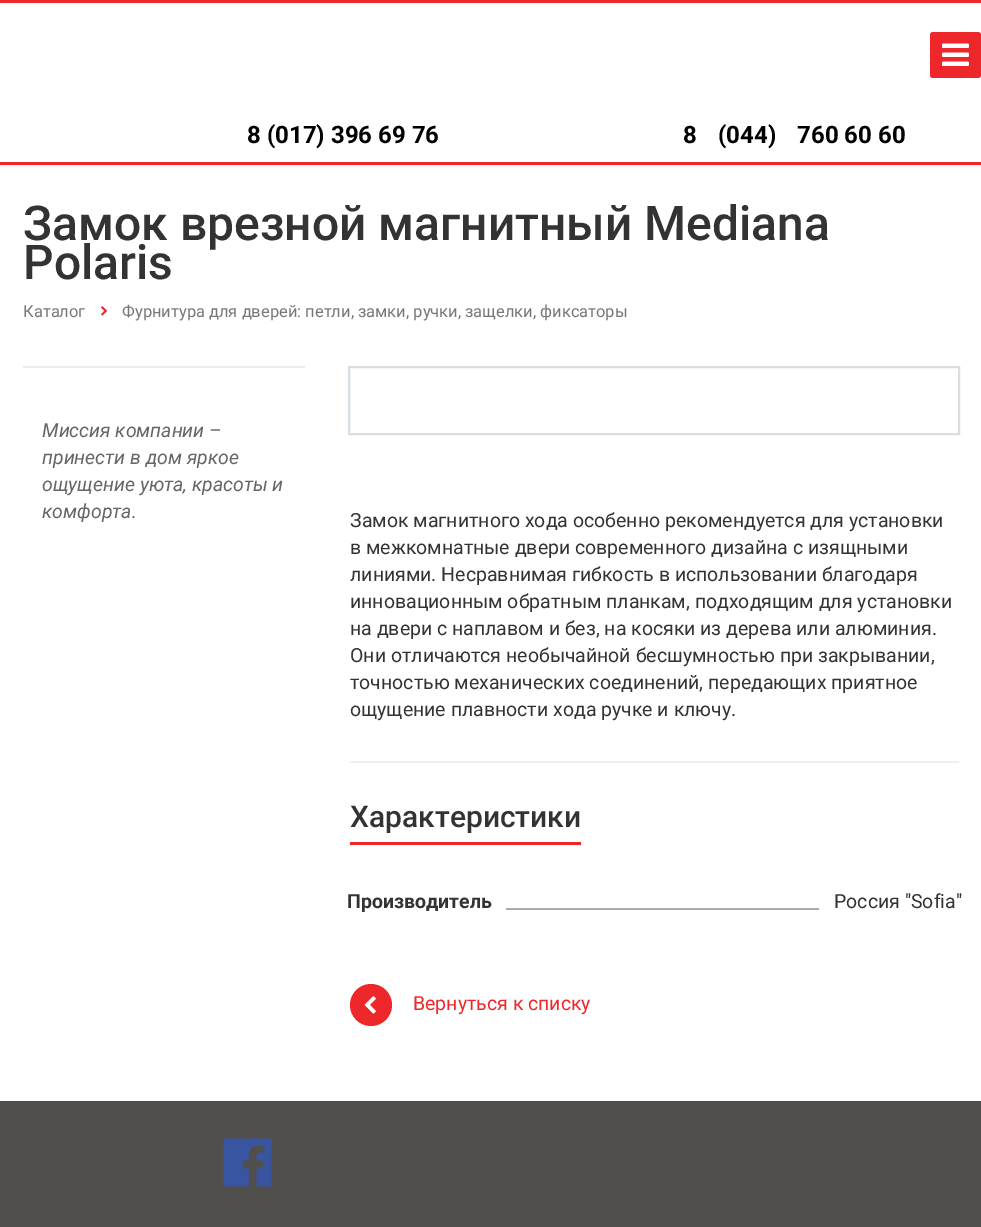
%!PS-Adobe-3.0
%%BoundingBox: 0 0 981 1227
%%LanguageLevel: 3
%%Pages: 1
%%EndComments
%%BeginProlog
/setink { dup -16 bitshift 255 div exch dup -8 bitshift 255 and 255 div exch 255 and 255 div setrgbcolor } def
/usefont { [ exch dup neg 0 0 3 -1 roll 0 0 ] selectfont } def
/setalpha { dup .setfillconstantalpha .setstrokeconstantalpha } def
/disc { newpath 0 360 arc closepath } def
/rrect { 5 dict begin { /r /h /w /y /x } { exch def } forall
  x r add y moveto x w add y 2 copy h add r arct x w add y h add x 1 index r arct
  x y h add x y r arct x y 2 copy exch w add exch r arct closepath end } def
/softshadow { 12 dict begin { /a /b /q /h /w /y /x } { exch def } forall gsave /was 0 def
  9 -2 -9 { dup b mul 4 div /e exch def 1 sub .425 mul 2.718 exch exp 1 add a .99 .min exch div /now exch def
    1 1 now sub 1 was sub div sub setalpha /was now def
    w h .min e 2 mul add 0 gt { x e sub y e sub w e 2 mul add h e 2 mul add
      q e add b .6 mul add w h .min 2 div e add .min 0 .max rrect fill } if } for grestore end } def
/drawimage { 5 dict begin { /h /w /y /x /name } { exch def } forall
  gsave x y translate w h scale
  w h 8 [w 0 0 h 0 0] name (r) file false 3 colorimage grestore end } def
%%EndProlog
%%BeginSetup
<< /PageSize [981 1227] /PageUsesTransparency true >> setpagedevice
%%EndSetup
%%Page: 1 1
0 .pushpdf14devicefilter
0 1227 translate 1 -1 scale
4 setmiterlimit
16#FFFFFF setink
0 0 981 1227 rectfill
gsave
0 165 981 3 rectclip
16#000000 setink
0 2 981 162 0 4 0.14 softshadow
grestore
16#ED272A setink
0 0 981 3 rectfill
930 32 51 46 3 rrect fill
(img1.raw) 942 43 27 23 drawimage
/Roboto-Bold 24 usefont
16#000000 setink
[
    [(8 \(017\) 396 69 76) 247 143]
    [(8) 683 143]
    [(\(044\)) 718 143]
    [(760 60 60) 797 143]
] { aload pop moveto show } forall
16#ED272A setink
0 162 981 3 rectfill
/Roboto-Medium 48 usefont
16#333333 setink
23 240 moveto (Замок врезной магнитный Mediana) show
23 279 moveto (Polaris) show
/Roboto-Regular 16.5 usefont
16#777777 setink
23 317 moveto (Каталог) show
(img2.raw) 101 306 6 10 drawimage
122 317 moveto (Фурнитура для дверей: петли, замки, ручки, защелки, фиксаторы) show
16#EBEEF1 setink
23 366 282 2 rectfill
/Roboto-Italic 19.5 usefont
16#666666 setink
[
    [(Миссия компании –) 42 437]
    [(принести в дом яркое) 42 464]
    [(ощущение уюта, красоты и) 42 491]
    [(комфорта.) 42 518]
] { aload pop moveto show } forall
16#D7DEE3 setink
2 setlinewidth
349 367 610 67 rectstroke
/Roboto-Regular 19.5 usefont
16#333333 setink
[
    [(Замок магнитного хода особенно рекомендуется для установки) 350 527]
    [(в межкомнатные двери современного дизайна с изящными) 350 554]
    [(линиями. Несравнимая гибкость в использовании благодаря) 350 581]
    [(инновационным обратным планкам, подходящим для установки) 350 608]
    [(на двери с наплавом и без, на косяки из дерева или алюминия.) 350 635]
    [(Они отличаются необычайной бесшумностью при закрывании,) 350 662]
    [(точностью механических соединений, передающих приятное) 350 689]
    [(ощущение плавности хода ручке и ключу.) 350 716]
] { aload pop moveto show } forall
16#EFEFEF setink
350 761 609 2 rectfill
16#ED272A setink
350 842 231 3 rectfill
/Roboto-Medium 30 usefont
16#333333 setink
350 827 moveto (Характеристики) show
/Roboto-Bold 19.5 usefont
347 908 moveto (Производитель) show
16#AAAAAA setink
506 908 313 2 rectfill
/Roboto-Regular 19.5 usefont
16#333333 setink
834 908 moveto (Россия "Sofia") show
16#ED272A setink
371 1005 21 disc fill
(img3.raw) 364 996 12 18 drawimage
413 1010 moveto (Вернуться к списку) show
16#514F4B setink
0 1101 981 126 rectfill
(img4.raw) 223 1138 49 49 drawimage
.poppdf14devicefilter showpage
%%EOF
